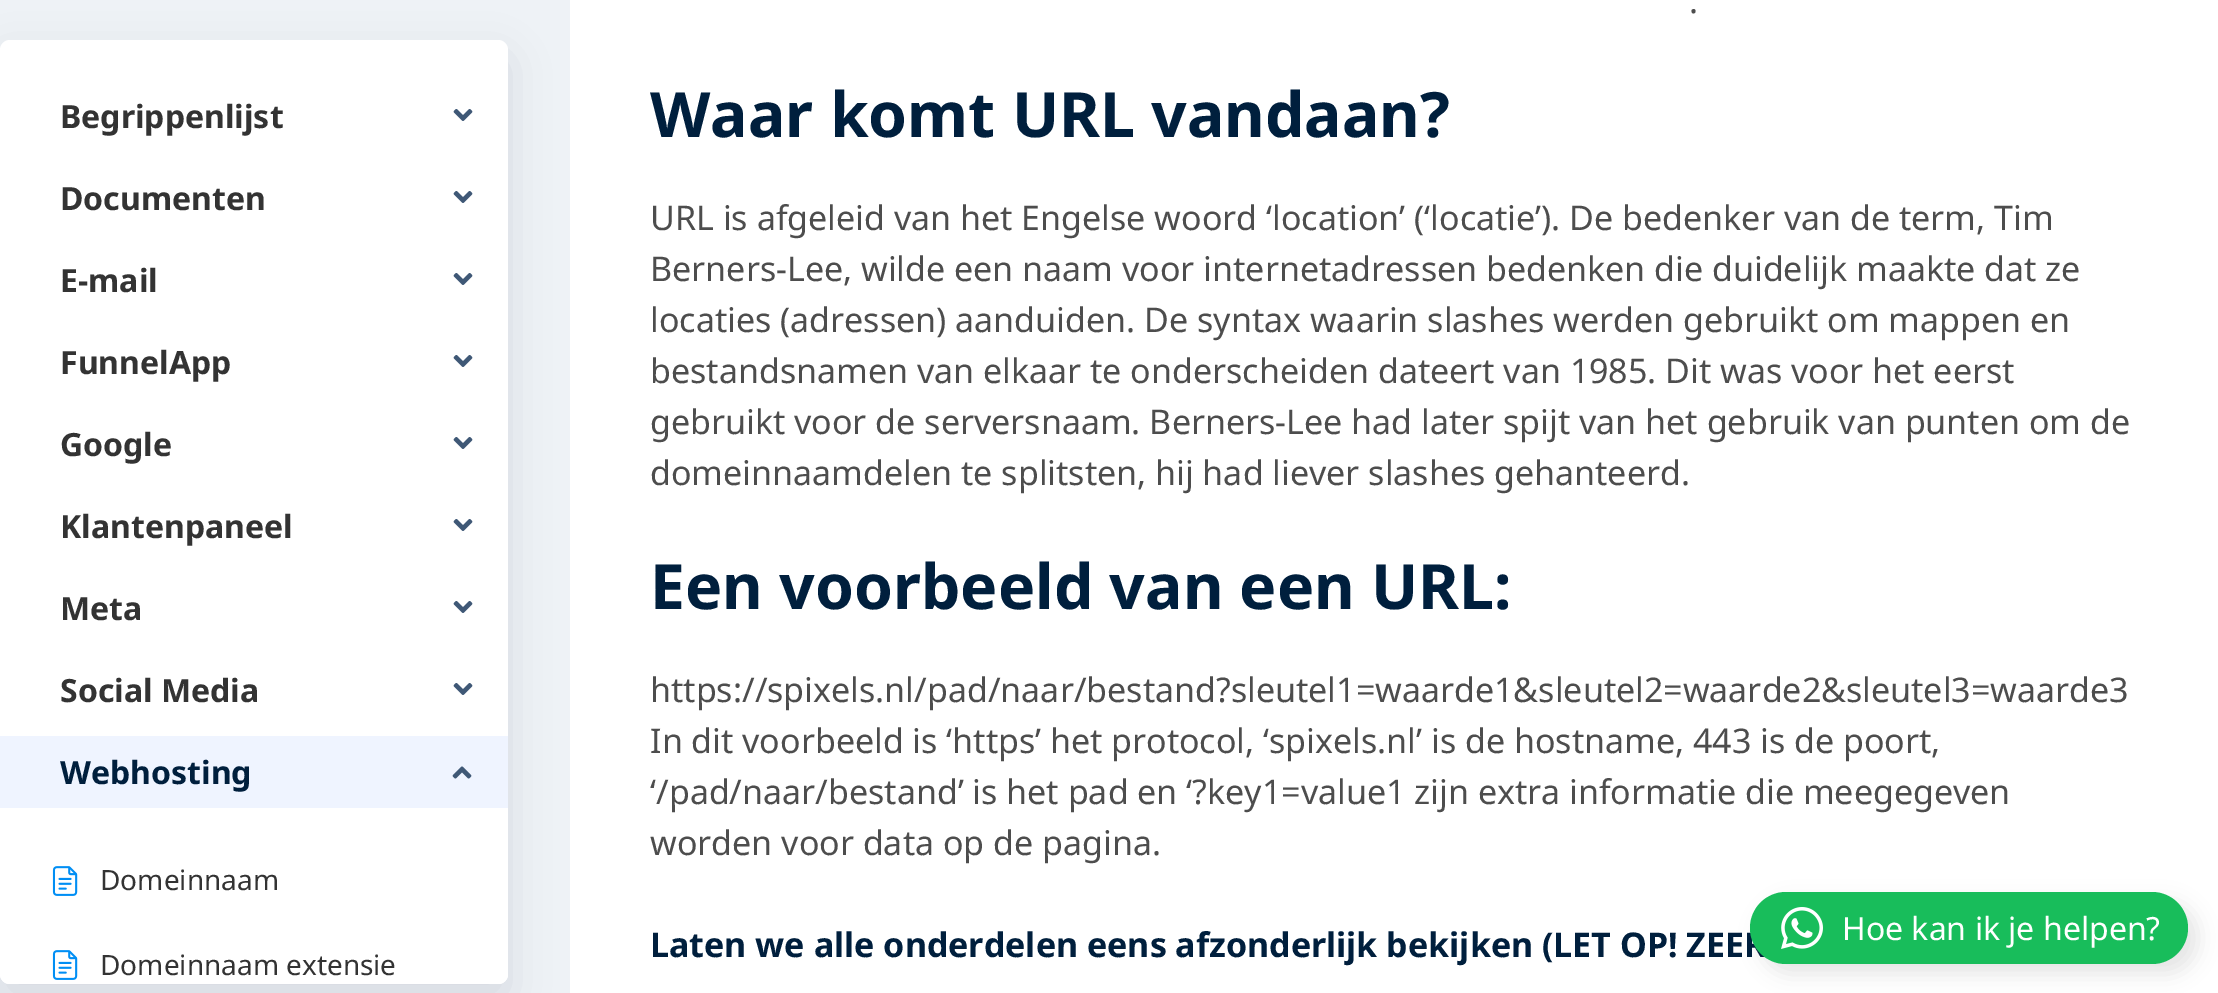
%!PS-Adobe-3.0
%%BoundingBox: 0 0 2218 993
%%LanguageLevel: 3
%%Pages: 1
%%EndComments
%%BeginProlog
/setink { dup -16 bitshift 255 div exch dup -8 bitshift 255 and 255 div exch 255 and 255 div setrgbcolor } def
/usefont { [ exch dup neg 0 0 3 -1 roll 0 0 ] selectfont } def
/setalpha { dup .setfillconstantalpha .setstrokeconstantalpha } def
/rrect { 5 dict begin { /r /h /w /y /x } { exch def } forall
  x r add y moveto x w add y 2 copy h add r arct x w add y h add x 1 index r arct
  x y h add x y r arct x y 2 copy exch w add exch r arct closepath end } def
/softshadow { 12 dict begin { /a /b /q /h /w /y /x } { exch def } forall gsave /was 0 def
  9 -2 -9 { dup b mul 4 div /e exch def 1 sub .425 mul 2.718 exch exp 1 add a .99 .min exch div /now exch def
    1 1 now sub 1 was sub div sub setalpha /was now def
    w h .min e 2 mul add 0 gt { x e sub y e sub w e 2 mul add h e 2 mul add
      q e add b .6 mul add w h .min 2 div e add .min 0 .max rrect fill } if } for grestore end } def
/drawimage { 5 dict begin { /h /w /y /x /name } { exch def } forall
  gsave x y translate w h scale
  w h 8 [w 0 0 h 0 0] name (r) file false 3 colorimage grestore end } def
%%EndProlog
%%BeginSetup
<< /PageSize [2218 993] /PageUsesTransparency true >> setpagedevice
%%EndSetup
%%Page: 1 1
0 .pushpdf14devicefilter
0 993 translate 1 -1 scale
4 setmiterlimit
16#EEF2F6 setink
0 0 2218 993 rectfill
16#000123 setink
0 56 508 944 10 20 0.1 softshadow
16#FFFFFF setink
0 40 508 944 10 rrect fill
/NotoSans-Bold 32 usefont
16#333333 setink
60 128 moveto (Begrippenlijst) show
(img1.raw) 453 109 20 12 drawimage
60 210 moveto (Documenten) show
(img1.raw) 453 191 20 12 drawimage
60 292 moveto (E-mail) show
(img1.raw) 453 273 20 12 drawimage
60 374 moveto (FunnelApp) show
(img1.raw) 453 355 20 12 drawimage
60 456 moveto (Google) show
(img1.raw) 453 437 20 12 drawimage
60 538 moveto (Klantenpaneel) show
(img1.raw) 453 519 20 12 drawimage
60 620 moveto (Meta) show
(img1.raw) 453 601 20 12 drawimage
60 702 moveto (Social Media) show
(img1.raw) 453 683 20 12 drawimage
16#EFF4FF setink
0 736 508 72 rectfill
16#001F3D setink
60 784 moveto (Webhosting) show
(img2.raw) 452 766 20 13 drawimage
16#FFFFFF setink
0 808 moveto 508 808 lineto 508 974 lineto 508 979.5 503.5 984 498 984 curveto 10 984 lineto 4.5 984 0 979.5 0 974 curveto closepath fill
(img3.raw) 52 866 26 30 drawimage
/NotoSans-Regular 28 usefont
16#333333 setink
100 890 moveto (Domeinnaam) show
(img3.raw) 52 950 26 30 drawimage
100 975 moveto (Domeinnaam extensie) show
16#FFFFFF setink
570 0 1648 993 rectfill
/NotoSans-Regular 34 usefont
16#4D4D4D setink
1689 13 moveto (.) show
/NotoSans-Bold 62.5 usefont
16#001F3D setink
650 137 moveto (Waar komt URL vandaan?) show
/NotoSans-Regular 34 usefont
16#4D4D4D setink
[
    [(URL is afgeleid van het Engelse woord ‘location’ \(‘locatie’\). De bedenker van de term, Tim) 650 230]
    [(Berners-Lee, wilde een naam voor internetadressen bedenken die duidelijk maakte dat ze) 650 281]
    [(locaties \(adressen\) aanduiden. De syntax waarin slashes werden gebruikt om mappen en) 650 332]
    [(bestandsnamen van elkaar te onderscheiden dateert van 1985. Dit was voor het eerst) 650 383]
    [(gebruikt voor de serversnaam. Berners-Lee had later spijt van het gebruik van punten om de) 650 434]
    [(domeinnaamdelen te splitsten, hij had liever slashes gehanteerd.) 650 485]
] { aload pop moveto show } forall
/NotoSans-Bold 62.5 usefont
16#001F3D setink
650 609 moveto (Een voorbeeld van een URL:) show
/NotoSans-Regular 34 usefont
16#4D4D4D setink
[
    [(https://spixels.nl/pad/naar/bestand?sleutel1=waarde1&sleutel2=waarde2&sleutel3=waarde3) 650 702]
    [(In dit voorbeeld is ‘https’ het protocol, ‘spixels.nl’ is de hostname, 443 is de poort,) 650 753]
    [(‘/pad/naar/bestand’ is het pad en ‘?key1=value1 zijn extra informatie die meegegeven) 650 804]
    [(worden voor data op de pagina.) 650 855]
] { aload pop moveto show } forall
/NotoSans-Bold 34 usefont
16#001F3D setink
650 957 moveto (Laten we alle onderdelen eens afzonderlijk bekijken \(LET OP! ZEER) show
16#000000 setink
1760 902 438 72 36 10 0.1 softshadow
16#18BD5B setink
1750 892 438 72 36 rrect fill
(img4.raw) 1781 907 42 42 drawimage
/NotoSans-Regular 32 usefont
16#FFFFFF setink
1842 940 moveto (Hoe kan ik je helpen?) show
.poppdf14devicefilter showpage
%%EOF
